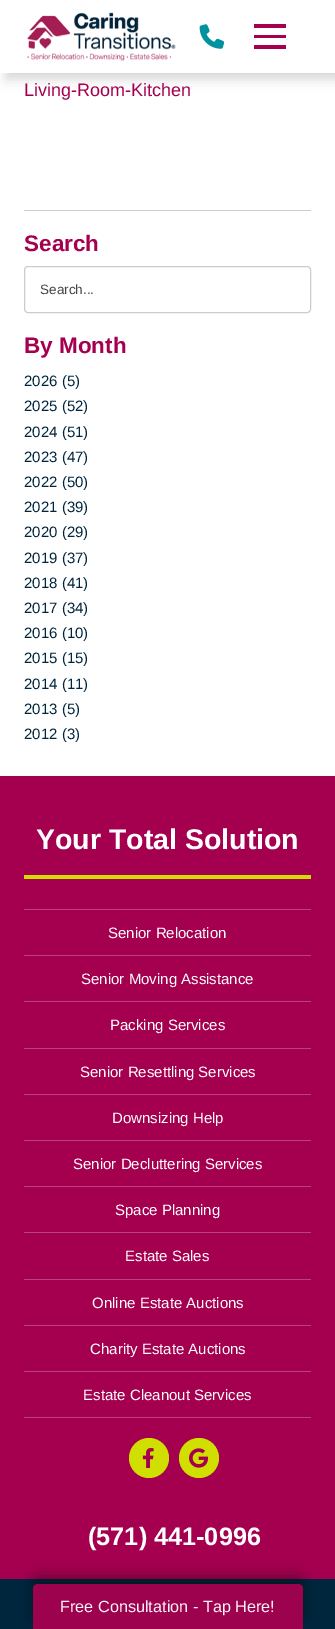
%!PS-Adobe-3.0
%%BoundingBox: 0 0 335 1629
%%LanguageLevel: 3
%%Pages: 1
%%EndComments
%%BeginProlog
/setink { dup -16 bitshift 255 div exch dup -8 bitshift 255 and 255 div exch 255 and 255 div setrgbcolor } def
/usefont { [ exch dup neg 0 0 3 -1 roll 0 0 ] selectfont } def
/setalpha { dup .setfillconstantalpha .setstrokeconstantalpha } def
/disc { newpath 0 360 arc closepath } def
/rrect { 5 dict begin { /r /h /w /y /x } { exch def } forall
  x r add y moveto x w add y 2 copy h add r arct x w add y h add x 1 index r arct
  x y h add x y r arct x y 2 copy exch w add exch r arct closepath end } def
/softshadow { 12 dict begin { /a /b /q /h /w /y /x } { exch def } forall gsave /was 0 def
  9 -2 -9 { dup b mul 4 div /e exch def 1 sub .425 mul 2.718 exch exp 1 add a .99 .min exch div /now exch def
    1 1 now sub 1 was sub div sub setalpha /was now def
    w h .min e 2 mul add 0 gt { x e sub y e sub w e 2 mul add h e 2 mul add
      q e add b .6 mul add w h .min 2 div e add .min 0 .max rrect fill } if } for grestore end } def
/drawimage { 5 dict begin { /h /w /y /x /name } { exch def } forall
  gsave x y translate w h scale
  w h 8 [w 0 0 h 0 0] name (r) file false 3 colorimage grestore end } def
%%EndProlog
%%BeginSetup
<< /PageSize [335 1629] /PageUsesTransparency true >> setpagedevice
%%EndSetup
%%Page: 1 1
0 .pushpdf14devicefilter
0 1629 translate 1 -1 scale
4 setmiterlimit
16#FFFFFF setink
0 0 335 1629 rectfill
16#000000 setink
6 6 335 73 0 6 0.16 softshadow
16#FFFFFF setink
0 0 335 73 rectfill
(img1.raw) 27 12 149 49 drawimage
(img2.raw) 199 24 25 25 drawimage
[
    [254 24 32 4 16#A50050]
    [254 35 32 3 16#A50050]
    [254 45 32 4 16#A50050]
] { aload pop setink rectfill } forall
/LiberationSans-Regular 18 usefont
24 96 moveto (Living-Room-Kitchen) show
16#CCCCCC setink
24 210 287 1 rectfill
/LiberationSans-Bold 22.5 usefont
16#A50050 setink
24 251 moveto (Search) show
16#CCCCCC setink
24.5 266.5 286 46 3.5 rrect stroke
/LiberationSans-Regular 13.5 usefont
16#444444 setink
40 294 moveto (Search...) show
/LiberationSans-Bold 22.5 usefont
16#A50050 setink
24 353 moveto (By Month) show
/LiberationSans-Regular 15 usefont
16#00263E setink
[
    [(2026 \(5\)) 24 386]
    [(2025 \(52\)) 24 411]
    [(2024 \(51\)) 24 437]
    [(2023 \(47\)) 24 462]
    [(2022 \(50\)) 24 487]
    [(2021 \(39\)) 24 512]
    [(2020 \(29\)) 24 537]
    [(2019 \(37\)) 24 563]
    [(2018 \(41\)) 24 588]
    [(2017 \(34\)) 24 613]
    [(2016 \(10\)) 24 638]
    [(2015 \(15\)) 24 663]
    [(2014 \(11\)) 24 689]
    [(2013 \(5\)) 24 714]
    [(2012 \(3\)) 24 739]
] { aload pop moveto show } forall
16#A50050 setink
0 776 335 803 rectfill
16#D0DF00 setink
24 875 287 4 rectfill
/LiberationSans-Bold 28.5 usefont
16#FFFFFF setink
36 849 moveto (Your Total Solution) show
16#BC407C setink
24 909 287 1 rectfill
24 955 287 1 rectfill
/LiberationSans-Regular 15 usefont
16#FFFFFF setink
108 938 moveto (Senior Relocation) show
16#BC407C setink
24 1001 287 1 rectfill
16#FFFFFF setink
81 984 moveto (Senior Moving Assistance) show
16#BC407C setink
24 1048 287 1 rectfill
16#FFFFFF setink
110 1030 moveto (Packing Services) show
16#BC407C setink
24 1094 287 1 rectfill
16#FFFFFF setink
80 1077 moveto (Senior Resettling Services) show
16#BC407C setink
24 1140 287 1 rectfill
16#FFFFFF setink
112 1123 moveto (Downsizing Help) show
16#BC407C setink
24 1186 287 1 rectfill
16#FFFFFF setink
73 1169 moveto (Senior Decluttering Services) show
16#BC407C setink
24 1232 287 1 rectfill
16#FFFFFF setink
115 1215 moveto (Space Planning) show
16#BC407C setink
24 1279 287 1 rectfill
16#FFFFFF setink
125 1261 moveto (Estate Sales) show
16#BC407C setink
24 1325 287 1 rectfill
16#FFFFFF setink
92 1308 moveto (Online Estate Auctions) show
16#BC407C setink
24 1371 287 1 rectfill
16#FFFFFF setink
90 1354 moveto (Charity Estate Auctions) show
16#BC407C setink
24 1417 287 1 rectfill
16#FFFFFF setink
83 1400 moveto (Estate Cleanout Services) show
16#D0DF00 setink
149 1458 20 disc fill
(img3.raw) 142 1448 12 20 drawimage
199 1458 20 disc fill
(img4.raw) 189 1448 19 20 drawimage
/LiberationSans-Bold 25.25 usefont
16#FFFFFF setink
88 1545 moveto (\(571\) 441-0996) show
16#00263E setink
0 1579 335 50 rectfill
gsave
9 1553 moveto 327 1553 lineto 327 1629 lineto 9 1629 lineto closepath 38 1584 moveto 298 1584 lineto 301 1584 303 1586 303 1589 curveto 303 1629 lineto 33 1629 lineto 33 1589 lineto 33 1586 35 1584 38 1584 curveto closepath eoclip newpath
16#000000 setink
33 1577 270 45 5 7.5 0.38 softshadow
grestore
0.95 setalpha
16#A50050 setink
38 1584 moveto 298 1584 lineto 301 1584 303 1586 303 1589 curveto 303 1629 lineto 33 1629 lineto 33 1589 lineto 33 1586 35 1584 38 1584 curveto closepath fill
/LiberationSans-Regular 16.25 usefont
1 setalpha
16#FAF2F6 setink
60 1612 moveto (Free Consultation - Tap Here!) show
.poppdf14devicefilter showpage
%%EOF
